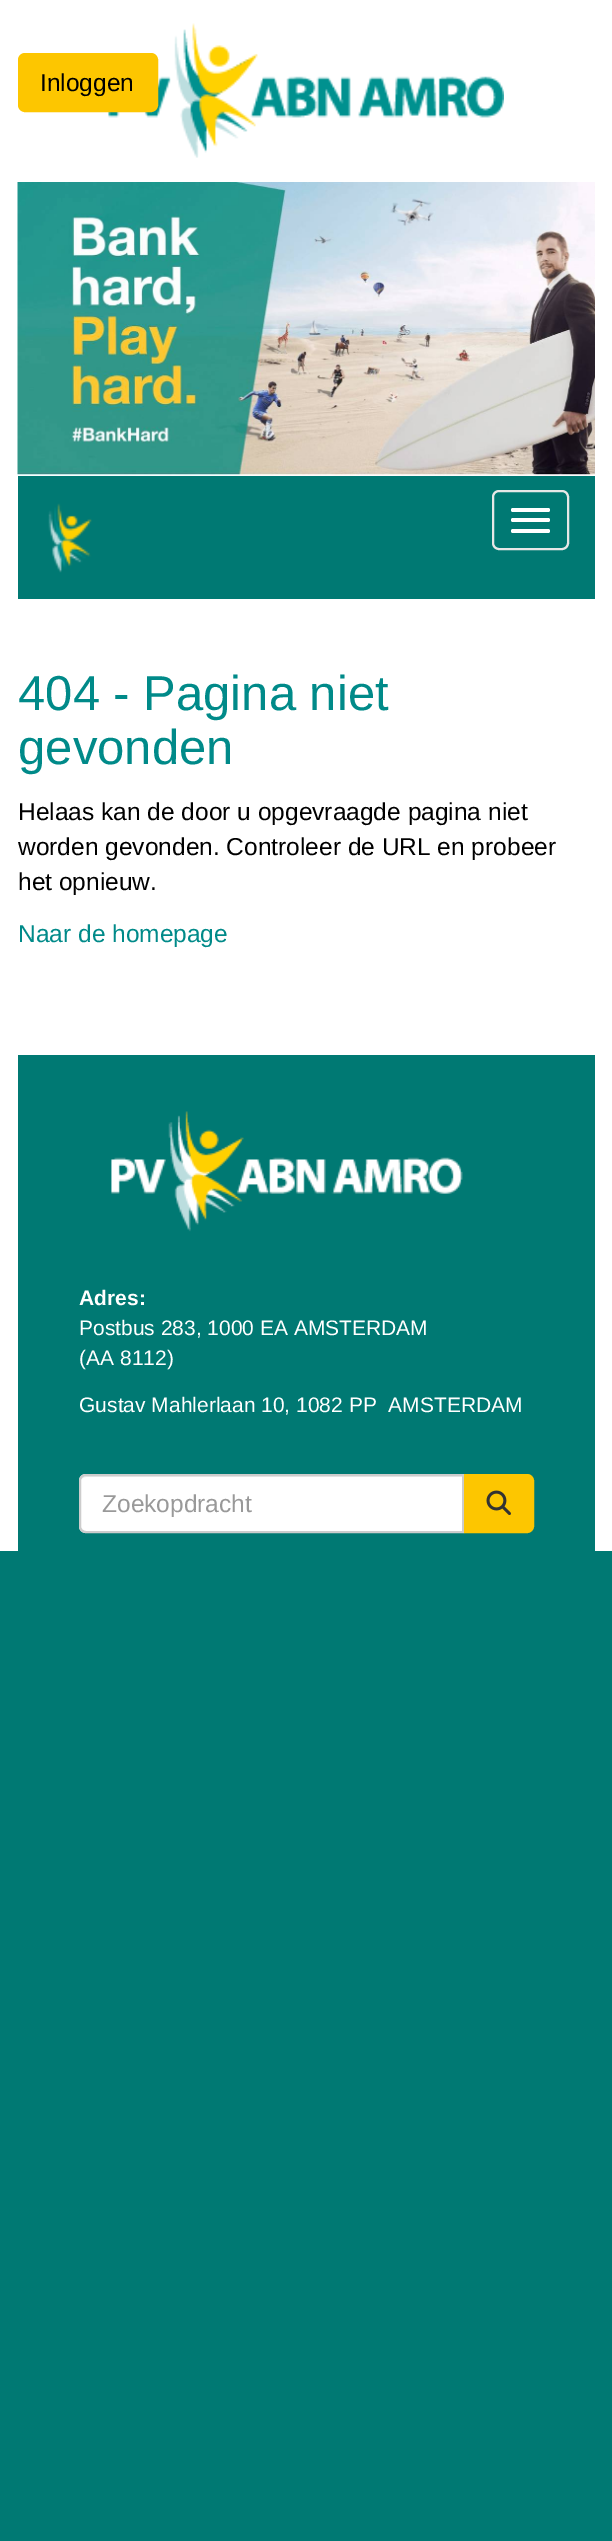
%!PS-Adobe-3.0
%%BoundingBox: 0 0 612 2541
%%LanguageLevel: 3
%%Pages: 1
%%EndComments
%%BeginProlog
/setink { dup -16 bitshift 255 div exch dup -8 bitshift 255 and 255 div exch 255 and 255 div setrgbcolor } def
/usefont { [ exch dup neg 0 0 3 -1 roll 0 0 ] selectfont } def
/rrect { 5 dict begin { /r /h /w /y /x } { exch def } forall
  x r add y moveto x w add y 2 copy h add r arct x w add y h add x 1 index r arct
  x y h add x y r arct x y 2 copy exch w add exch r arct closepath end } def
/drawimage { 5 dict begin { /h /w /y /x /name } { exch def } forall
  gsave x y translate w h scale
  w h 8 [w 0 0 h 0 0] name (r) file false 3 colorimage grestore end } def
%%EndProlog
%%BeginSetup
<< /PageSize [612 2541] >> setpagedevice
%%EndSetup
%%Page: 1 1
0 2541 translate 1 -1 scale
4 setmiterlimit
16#007973 setink
0 0 612 2541 rectfill
16#FFFFFF setink
0 0 612 1055 rectfill
(img1.raw) 108 23 396 135 drawimage
16#FDC600 setink
19 54 138 57 6 rrect gsave fill grestore
2 setlinewidth
stroke
/LiberationSans-Regular 24.5 usefont
16#000000 setink
40 91 moveto (Inloggen) show
(img2.raw) 17 182 578 294 drawimage
16#007973 setink
18 476 577 123 rectfill
(img3.raw) 48 503 44 70 drawimage
16#E7E7E7 setink
493 491 75 58 6 rrect stroke
16#FFFFFF setink
511 508 39 4 2 rrect fill
511 518 39 4 2 rrect fill
511 529 39 4 2 rrect fill
/LiberationSans-Regular 49 usefont
16#008A89 setink
18 710 moveto (404 - Pagina niet) show
18 764 moveto (gevonden) show
/LiberationSans-Regular 24.5 usefont
16#000000 setink
[
    [(Helaas kan de door u opgevraagde pagina niet) 18 820]
    [(worden gevonden. Controleer de URL en probeer) 18 855]
    [(het opnieuw.) 18 890]
] { aload pop moveto show } forall
16#008A89 setink
18 942 moveto (Naar de homepage) show
16#FFFFFF setink
595 1055 17 496 rectfill
0 1055 18 496 rectfill
(img4.raw) 111 1111 352 121 drawimage
/LiberationSans-Bold 21 usefont
79 1305 moveto (Adres:) show
/LiberationSans-Regular 21 usefont
[
    [(Postbus 283, 1000 EA AMSTERDAM) 79 1335]
    [(\(AA 8112\)) 79 1365]
    [(Gustav Mahlerlaan 10, 1082 PP  AMSTERDAM) 79 1412]
] { aload pop moveto show } forall
86 1474 moveto 464 1474 lineto 464 1533 lineto 86 1533 lineto 82 1533 79 1530 79 1526 curveto 79 1481 lineto 79 1477 82 1474 86 1474 curveto closepath fill
16#ECECEC setink
86 1477 moveto 462 1477 lineto 462 1475 lineto 86 1475 lineto 84 1475 81 1477 81 1479 curveto 82 1478 84 1477 86 1477 curveto closepath fill
16#CCCCCC setink
86 1475 moveto 463 1475 lineto 463 1532 lineto 86 1532 lineto 82.5 1532 80 1529.5 80 1526 curveto 80 1481 lineto 80 1477.5 82.5 1475 86 1475 curveto closepath stroke
/LiberationSans-Regular 24.5 usefont
16#999999 setink
102 1512 moveto (Zoekopdracht) show
16#FDC600 setink
465 1475 moveto 527 1475 lineto 530.5 1475 533 1477.5 533 1481 curveto 533 1526 lineto 533 1529.5 530.5 1532 527 1532 curveto 465 1532 lineto closepath gsave fill grestore
stroke
(img5.raw) 486 1490 25 25 drawimage
showpage
%%EOF
